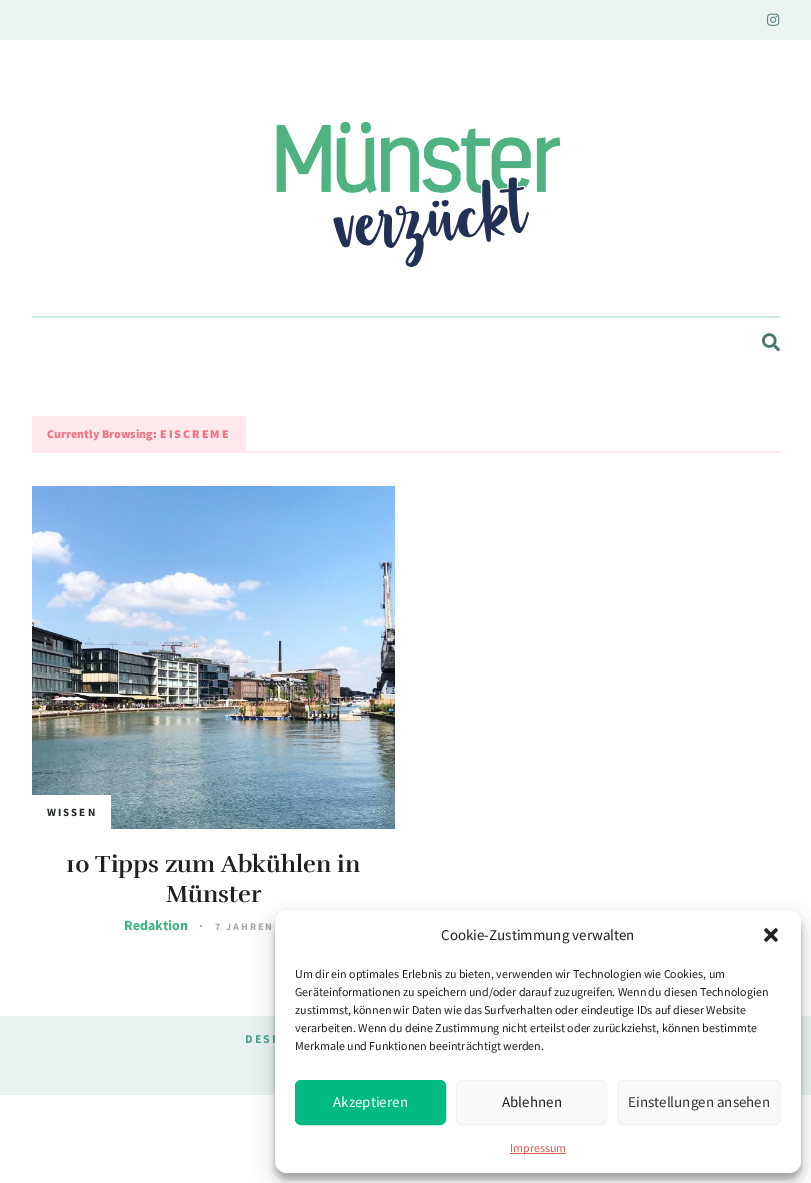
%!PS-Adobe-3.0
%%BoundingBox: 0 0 811 1183
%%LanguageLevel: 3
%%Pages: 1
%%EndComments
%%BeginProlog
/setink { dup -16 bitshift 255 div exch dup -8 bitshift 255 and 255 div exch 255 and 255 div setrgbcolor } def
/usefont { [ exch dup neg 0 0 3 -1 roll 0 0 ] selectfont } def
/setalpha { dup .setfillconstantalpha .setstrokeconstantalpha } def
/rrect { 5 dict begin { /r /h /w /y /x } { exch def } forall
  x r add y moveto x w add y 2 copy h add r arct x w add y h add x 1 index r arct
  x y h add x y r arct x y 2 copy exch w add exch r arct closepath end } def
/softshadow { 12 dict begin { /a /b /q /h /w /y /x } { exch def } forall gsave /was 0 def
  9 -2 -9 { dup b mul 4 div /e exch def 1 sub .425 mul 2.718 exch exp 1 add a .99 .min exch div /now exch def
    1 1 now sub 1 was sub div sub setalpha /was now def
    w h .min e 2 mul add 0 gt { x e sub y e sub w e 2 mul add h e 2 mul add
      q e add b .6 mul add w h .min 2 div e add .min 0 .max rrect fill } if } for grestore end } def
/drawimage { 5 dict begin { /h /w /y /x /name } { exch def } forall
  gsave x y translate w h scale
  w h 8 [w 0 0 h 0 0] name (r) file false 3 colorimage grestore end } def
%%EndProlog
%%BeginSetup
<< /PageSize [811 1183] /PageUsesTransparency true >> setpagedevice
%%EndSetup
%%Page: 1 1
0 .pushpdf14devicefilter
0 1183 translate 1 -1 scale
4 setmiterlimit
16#FFFFFF setink
0 0 811 1183 rectfill
16#EBF4F3 setink
0 0 811 40 rectfill
(img1.raw) 767 13 13 13 drawimage
(img2.raw) 276 121 285 147 drawimage
16#D0E9E6 setink
32 316 748 2 rectfill
(img3.raw) 762 333 18 19 drawimage
16#FFE9EC setink
32 451 748 2 rectfill
32 416 214 35 rectfill
/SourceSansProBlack-Black 12 usefont
16#EF7583 setink
47 438 moveto (Currently Browsing:) show
160 438 moveto 2 0 (EISCREME) ashow
(img4.raw) 32 486 363 343 drawimage
16#FFFFFF setink
32 795 79 34 rectfill
/SourceSansPro-Bold 11 usefont
16#282D2C setink
47 816 moveto 2 0 (WISSEN) ashow
/Rufina-Bold 24 usefont
16#21201F setink
66 872 moveto (10 Tipps zum Abkühlen in) show
166 902 moveto (Münster) show
/SourceSansPro-Bold 14 usefont
16#3CB680 setink
124 930 moveto (Redaktion) show
16#A6A6A6 setink
200 925 2 2 rectfill
/SourceSansPro-Bold 10 usefont
16#A7A7A7 setink
215 930 moveto 2 0 (7 JAHREN) ashow
16#E8F2F0 setink
0 1016 811 79 rectfill
/SourceSansPro-Bold 12 usefont
16#4D9E91 setink
245 1043 moveto 2 0 (DESI) ashow
16#000000 setink
275 916 526 263 12 3 0.23 softshadow
275 920 526 263 12 10 0.19 softshadow
16#FFFFFF setink
275 910 526 263 12 rrect fill
/SourceSansPro-Regular 15 usefont
16#21201F setink
441 940 moveto (Cookie-Zustimmung verwalten) show
(img5.raw) 764 928 14 14 drawimage
/SourceSansPro-Regular 12 usefont
[
    [(Um dir ein optimales Erlebnis zu bieten, verwenden wir Technologien wie Cookies, um) 295 978]
    [(Geräteinformationen zu speichern und/oder darauf zuzugreifen. Wenn du diesen Technologien) 295 996]
    [(zustimmst, können wir Daten wie das Surfverhalten oder eindeutige IDs auf dieser Website) 295 1014]
    [(verarbeiten. Wenn du deine Zustimmung nicht erteilst oder zurückziehst, können bestimmte) 295 1032]
    [(Merkmale und Funktionen beeinträchtigt werden.) 295 1050]
] { aload pop moveto show } forall
16#00BA82 setink
295.5 1080.5 150 44 5.5 rrect gsave fill grestore
stroke
/SourceSansPro-Regular 15 usefont
16#FFFFFF setink
333 1107 moveto (Akzeptieren) show
16#F9F9F9 setink
456.5 1080.5 150 44 5.5 rrect gsave fill grestore
16#F2F2F2 setink
stroke
16#21201F setink
502 1107 moveto (Ablehnen) show
16#F9F9F9 setink
617.5 1080.5 163 44 5.5 rrect gsave fill grestore
16#F2F2F2 setink
stroke
16#333333 setink
628 1107 moveto (Einstellungen ansehen) show
16#E55A50 setink
510 1153 56 1 rectfill
/SourceSansPro-Regular 12 usefont
510 1152 moveto (Impressum) show
.poppdf14devicefilter showpage
%%EOF
